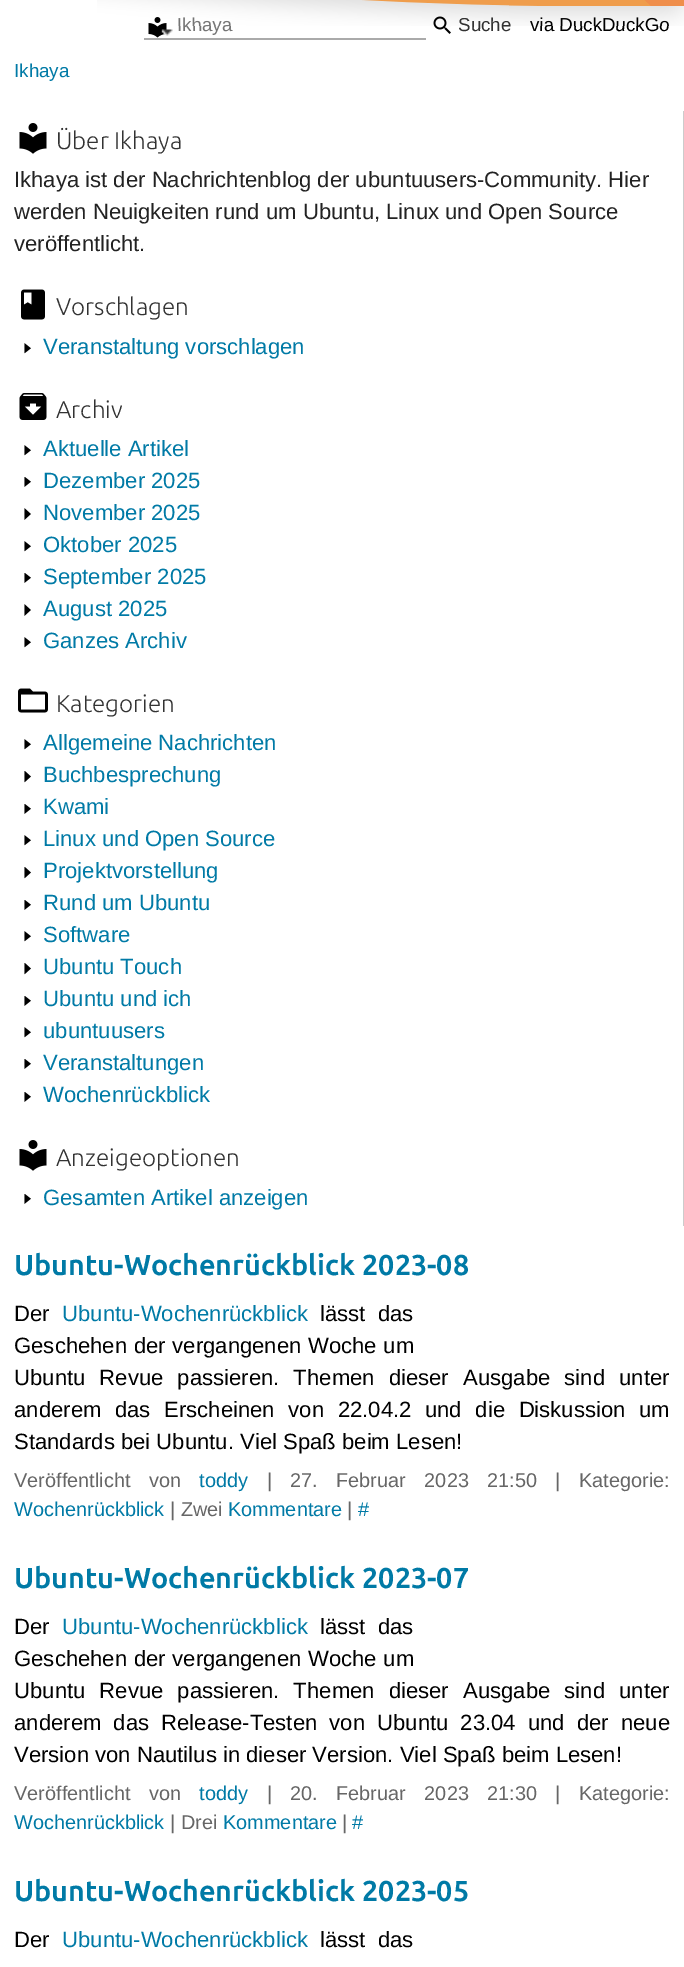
%!PS-Adobe-3.0
%%BoundingBox: 0 0 684 1967
%%LanguageLevel: 3
%%Pages: 1
%%EndComments
%%BeginProlog
/setink { dup -16 bitshift 255 div exch dup -8 bitshift 255 and 255 div exch 255 and 255 div setrgbcolor } def
/usefont { [ exch dup neg 0 0 3 -1 roll 0 0 ] selectfont } def
/drawimage { 5 dict begin { /h /w /y /x /name } { exch def } forall
  gsave x y translate w h scale
  w h 8 [w 0 0 h 0 0] name (r) file false 3 colorimage grestore end } def
%%EndProlog
%%BeginSetup
<< /PageSize [684 1967] >> setpagedevice
%%EndSetup
%%Page: 1 1
0 1967 translate 1 -1 scale
4 setmiterlimit
16#FFFFFF setink
0 0 684 1967 rectfill
(img3.raw) 148 17 19 21 drawimage
/LiberationSans-Regular 18.75 usefont
16#757575 setink
177 31 moveto (Ikhaya) show
16#000000 setink
530 31 moveto (via DuckDuckGo) show
(img1.raw) 97 0 587 26 drawimage
(img2.raw) 161 29 12 7 drawimage
16#AAAAAA setink
144 38 282 2 rectfill
(img4.raw) 433 16 18 18 drawimage
16#333333 setink
458 31 moveto (Suche) show
16#007AA6 setink
14 77 moveto (Ikhaya) show
16#CCCCCC setink
683 111 1 1115 rectfill
(img5.raw) 19 123 28 31 drawimage
/Ubuntu-Light 24.25 usefont
16#333333 setink
56 149 moveto (Über Ikhaya) show
/LiberationSans-Regular 22.1 usefont
16#222222 setink
[
    [(Ikhaya ist der Nachrichtenblog der ubuntuusers-Community. Hier) 14 187]
    [(werden Neuigkeiten rund um Ubuntu, Linux und Open Source) 14 219]
    [(veröffentlicht.) 14 251]
] { aload pop moveto show } forall
(img6.raw) 21 289 24 31 drawimage
/Ubuntu-Light 24.25 usefont
16#333333 setink
56 315 moveto (Vorschlagen) show
(img7.raw) 24 343 7 11 drawimage
/LiberationSans-Regular 22.1 usefont
16#007AA6 setink
43 354 moveto (Veranstaltung vorschlagen) show
(img8.raw) 19 393 28 27 drawimage
/Ubuntu-Light 24.25 usefont
16#333333 setink
56 418 moveto (Archiv) show
(img7.raw) 24 445 7 11 drawimage
/LiberationSans-Regular 22.1 usefont
16#007AA6 setink
43 456 moveto (Aktuelle Artikel) show
(img9.raw) 24 477 7 10 drawimage
43 488 moveto (Dezember 2025) show
(img10.raw) 24 508 7 12 drawimage
43 520 moveto (November 2025) show
(img7.raw) 24 541 7 11 drawimage
43 552 moveto (Oktober 2025) show
(img9.raw) 24 573 7 10 drawimage
43 584 moveto (September 2025) show
(img10.raw) 24 604 7 12 drawimage
43 616 moveto (August 2025) show
(img7.raw) 24 637 7 11 drawimage
43 648 moveto (Ganzes Archiv) show
(img11.raw) 18 688 30 25 drawimage
/Ubuntu-Light 24.25 usefont
16#333333 setink
56 712 moveto (Kategorien) show
(img7.raw) 24 739 7 11 drawimage
/LiberationSans-Regular 22.1 usefont
16#007AA6 setink
43 750 moveto (Allgemeine Nachrichten) show
(img12.raw) 24 771 7 12 drawimage
43 782 moveto (Buchbesprechung) show
(img9.raw) 24 804 7 10 drawimage
43 814 moveto (Kwami) show
(img7.raw) 24 835 7 11 drawimage
43 846 moveto (Linux und Open Source) show
(img12.raw) 24 867 7 12 drawimage
43 878 moveto (Projektvorstellung) show
(img9.raw) 24 900 7 10 drawimage
43 910 moveto (Rund um Ubuntu) show
(img7.raw) 24 931 7 11 drawimage
43 942 moveto (Software) show
(img12.raw) 24 963 7 12 drawimage
43 974 moveto (Ubuntu Touch) show
(img9.raw) 24 996 7 10 drawimage
43 1006 moveto (Ubuntu und ich) show
(img7.raw) 24 1027 7 11 drawimage
43 1038 moveto (ubuntuusers) show
(img9.raw) 24 1059 7 10 drawimage
43 1070 moveto (Veranstaltungen) show
(img9.raw) 24 1092 7 10 drawimage
43 1102 moveto (Wochenrückblick) show
(img5.raw) 19 1140 28 31 drawimage
/Ubuntu-Light 24.25 usefont
16#333333 setink
56 1166 moveto (Anzeigeoptionen) show
(img9.raw) 24 1194 7 10 drawimage
/LiberationSans-Regular 22.1 usefont
16#007AA6 setink
43 1205 moveto (Gesamten Artikel anzeigen) show
/Ubuntu-Bold 28.75 usefont
14 1275 moveto (Ubuntu-Wochenrückblick 2023-08) show
/LiberationSans-Regular 22.1 usefont
16#000000 setink
14 1321 moveto (Der) show
16#007AA6 setink
62 1321 moveto (Ubuntu-Wochenrückblick) show
16#000000 setink
320 1321 moveto 6 0 32 (lässt das) widthshow
14 1353 moveto 0.5 0 32 (Geschehen der vergangenen Woche um) widthshow
14 1385 moveto 8 0 32 (Ubuntu Revue passieren. Themen dieser Ausgabe sind unter) widthshow
14 1417 moveto 7.5 0 32 (anderem das Erscheinen von 22.04.2 und die Diskussion um) widthshow
14 1449 moveto (Standards bei Ubuntu. Viel Spaß beim Lesen!) show
/LiberationSans-Regular 19.9 usefont
16#666666 setink
14 1487 moveto 13 0 32 (Veröffentlicht von) widthshow
16#007AA6 setink
199 1487 moveto (toddy) show
16#666666 setink
267 1487 moveto (|) show
290 1487 moveto 13 0 32 (27. Februar 2023 21:50 |) widthshow
579 1487 moveto (Kategorie:) show
16#007AA6 setink
14 1516 moveto (Wochenrückblick) show
16#666666 setink
170 1516 moveto (| Zwei) show
16#007AA6 setink
228 1516 moveto (Kommentare) show
16#666666 setink
347 1516 moveto (|) show
16#007AA6 setink
358 1516 moveto (#) show
/Ubuntu-Bold 28.75 usefont
14 1588 moveto (Ubuntu-Wochenrückblick 2023-07) show
/LiberationSans-Regular 22.1 usefont
16#000000 setink
14 1634 moveto (Der) show
16#007AA6 setink
62 1634 moveto (Ubuntu-Wochenrückblick) show
16#000000 setink
320 1634 moveto 6 0 32 (lässt das) widthshow
14 1666 moveto 0.5 0 32 (Geschehen der vergangenen Woche um) widthshow
14 1698 moveto 8 0 32 (Ubuntu Revue passieren. Themen dieser Ausgabe sind unter) widthshow
14 1730 moveto 6 0 32 (anderem das Release-Testen von Ubuntu 23.04 und der neue) widthshow
14 1762 moveto (Version von Nautilus in dieser Version. Viel Spaß beim Lesen!) show
/LiberationSans-Regular 19.9 usefont
16#666666 setink
14 1800 moveto 13 0 32 (Veröffentlicht von) widthshow
16#007AA6 setink
199 1800 moveto (toddy) show
16#666666 setink
267 1800 moveto (|) show
290 1800 moveto 13 0 32 (20. Februar 2023 21:30 |) widthshow
579 1800 moveto (Kategorie:) show
16#007AA6 setink
14 1829 moveto (Wochenrückblick) show
16#666666 setink
170 1829 moveto (| Drei) show
16#007AA6 setink
223 1829 moveto (Kommentare) show
16#666666 setink
342 1829 moveto (|) show
16#007AA6 setink
352 1829 moveto (#) show
/Ubuntu-Bold 28.75 usefont
14 1901 moveto (Ubuntu-Wochenrückblick 2023-05) show
/LiberationSans-Regular 22.1 usefont
16#000000 setink
14 1947 moveto (Der) show
16#007AA6 setink
62 1947 moveto (Ubuntu-Wochenrückblick) show
16#000000 setink
320 1947 moveto 6 0 32 (lässt das) widthshow
showpage
%%EOF
